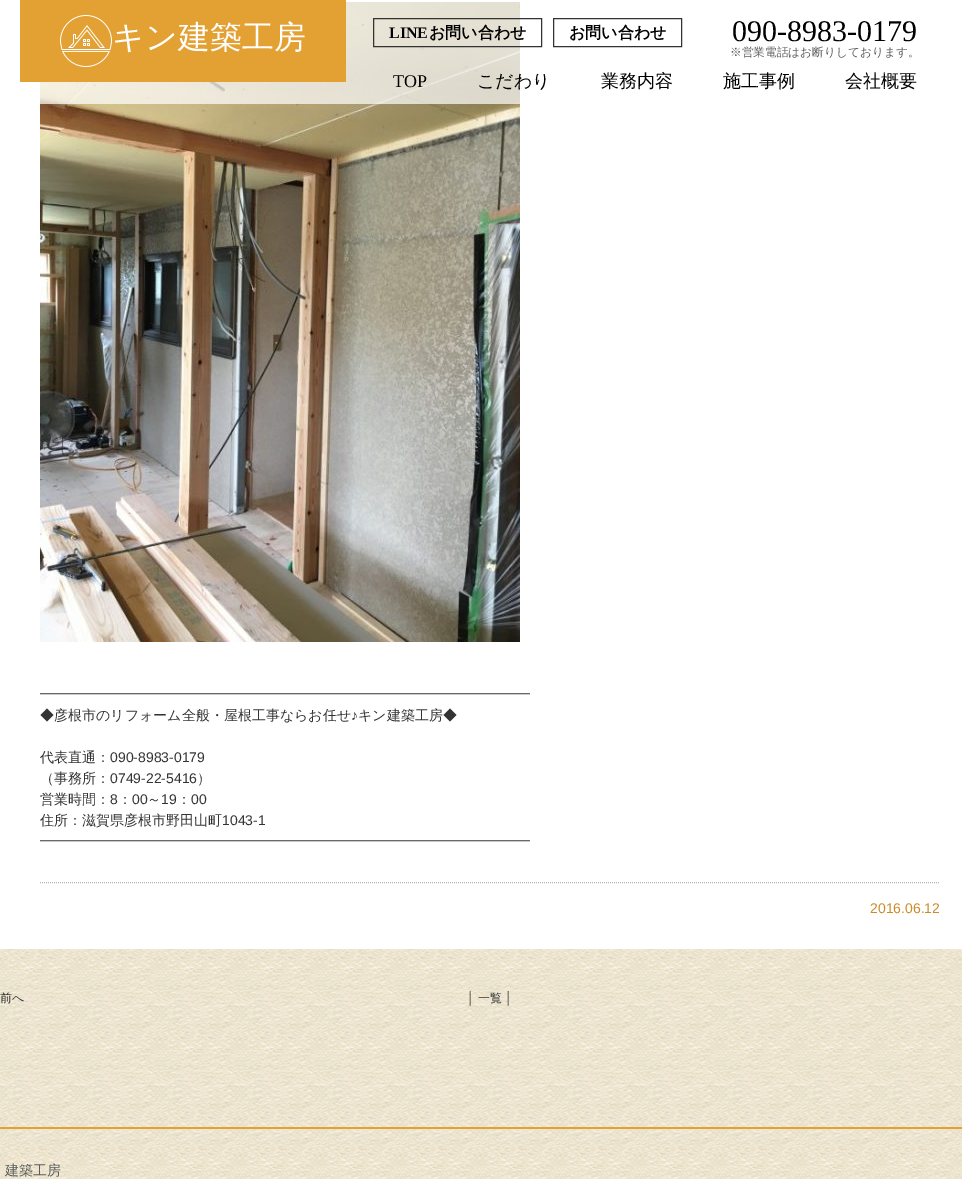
%!PS-Adobe-3.0
%%BoundingBox: 0 0 962 1179
%%LanguageLevel: 3
%%Pages: 1
%%EndComments
%%BeginProlog
/setink { dup -16 bitshift 255 div exch dup -8 bitshift 255 and 255 div exch 255 and 255 div setrgbcolor } def
/usefont { [ exch dup neg 0 0 3 -1 roll 0 0 ] selectfont } def
/setalpha { dup .setfillconstantalpha .setstrokeconstantalpha } def
/drawimage { 5 dict begin { /h /w /y /x /name } { exch def } forall
  gsave x y translate w h scale
  w h 8 [w 0 0 h 0 0] name (r) file false 3 colorimage grestore end } def
%%EndProlog
%%BeginSetup
<< /PageSize [962 1179] /PageUsesTransparency true >> setpagedevice
%%EndSetup
%%Page: 1 1
0 .pushpdf14devicefilter
0 1179 translate 1 -1 scale
4 setmiterlimit
16#FFFFFF setink
0 0 962 1179 rectfill
(img1.raw) 0 949 962 178 drawimage
(img3.raw) 40 2 480 640 drawimage
0.7 setalpha
40 2 480 102 rectfill
1 setalpha
16#E3A033 setink
20 0 326 82 rectfill
(img2.raw) 60 15 52 52 drawimage
/WenQuanYiZenHei-Medium 32 usefont
16#FFFFFF setink
112 48 moveto (キン建築工房) show
16#333333 setink
373.5 18.5 168 28 rectstroke
/LiberationSerif-Bold 16 usefont
16#000000 setink
389 38 moveto (LINE) show
/WenQuanYiZenHei-Bold 16 usefont
429 38 moveto (お問い合わせ) show
16#333333 setink
553.5 18.5 128 28 rectstroke
16#000000 setink
569 38 moveto (お問い合わせ) show
/LiberationSerif-Regular 30 usefont
732 41 moveto (090-8983-0179) show
/WenQuanYiZenHei-Medium 11.7 usefont
16#5C5C5C setink
730 56 moveto (※営業電話はお断りしております。) show
/LiberationSerif-Regular 18 usefont
16#000000 setink
393 87 moveto (TOP) show
/WenQuanYiZenHei-Medium 18 usefont
[
    [(こだわり) 477 87]
    [(業務内容) 601 87]
    [(施工事例) 723 87]
    [(会社概要) 845 87]
] { aload pop moveto show } forall
/WenQuanYiZenHei-Medium 14 usefont
16#333333 setink
40 699 moveto (━━━━━━━━━━━━━━━━━━━━━━━━━━━━━━━━━━━) show
40 720 moveto (◆彦根市のリフォーム全般・屋根工事ならお任せ) show
/LiberationSans-Regular 14 usefont
351 720 moveto (♪) show
/WenQuanYiZenHei-Medium 14 usefont
358 720 moveto (キン建築工房◆) show
40 762 moveto (代表直通：) show
/LiberationSans-Regular 14 usefont
110 762 moveto (090-8983-0179) show
/WenQuanYiZenHei-Medium 14 usefont
40 783 moveto (（事務所：) show
/LiberationSans-Regular 14 usefont
110 783 moveto (0749-22-5416) show
/WenQuanYiZenHei-Medium 14 usefont
197 783 moveto (）) show
40 804 moveto (営業時間：) show
/LiberationSans-Regular 14 usefont
110 804 moveto (8) show
/WenQuanYiZenHei-Medium 14 usefont
118 804 moveto (：) show
/LiberationSans-Regular 14 usefont
132 804 moveto (00) show
/WenQuanYiZenHei-Medium 14 usefont
147 804 moveto (～) show
/LiberationSans-Regular 14 usefont
161 804 moveto (19) show
/WenQuanYiZenHei-Medium 14 usefont
177 804 moveto (：) show
/LiberationSans-Regular 14 usefont
191 804 moveto (00) show
/WenQuanYiZenHei-Medium 14 usefont
40 825 moveto (住所：滋賀県彦根市野田山町) show
/LiberationSans-Regular 14 usefont
222 825 moveto (1043-1) show
/WenQuanYiZenHei-Medium 14 usefont
40 846 moveto (━━━━━━━━━━━━━━━━━━━━━━━━━━━━━━━━━━━) show
16#B4B4B4 setink
[1 1] 0 setdash
40 882.5 moveto 940 882.5 lineto stroke
/LiberationSans-Regular 14 usefont
16#CA8C28 setink
870 913 moveto (2016.06.12) show
/WenQuanYiZenHei-Medium 12 usefont
16#333333 setink
0 1002 moveto (前へ) show
/LiberationSans-Regular 12 usefont
467 1002 moveto (│) show
/WenQuanYiZenHei-Medium 12 usefont
478 1002 moveto (一覧) show
/LiberationSans-Regular 12 usefont
505 1002 moveto (│) show
(img4.raw) 0 1129 962 50 drawimage
16#E3A033 setink
0 1127 962 2 rectfill
/WenQuanYiZenHei-Medium 14 usefont
16#5C5C5C setink
5 1175 moveto (建築工房) show
.poppdf14devicefilter showpage
%%EOF
